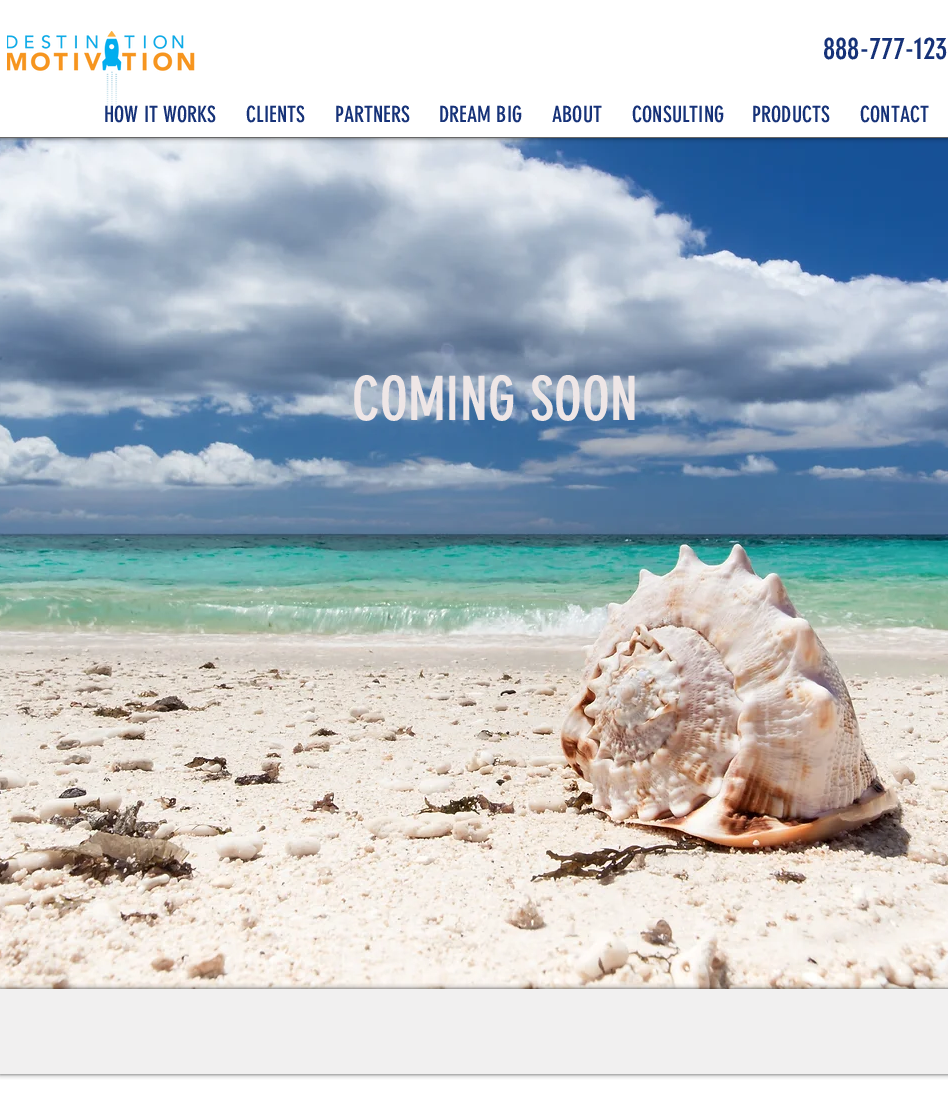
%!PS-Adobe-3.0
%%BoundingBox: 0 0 948 1111
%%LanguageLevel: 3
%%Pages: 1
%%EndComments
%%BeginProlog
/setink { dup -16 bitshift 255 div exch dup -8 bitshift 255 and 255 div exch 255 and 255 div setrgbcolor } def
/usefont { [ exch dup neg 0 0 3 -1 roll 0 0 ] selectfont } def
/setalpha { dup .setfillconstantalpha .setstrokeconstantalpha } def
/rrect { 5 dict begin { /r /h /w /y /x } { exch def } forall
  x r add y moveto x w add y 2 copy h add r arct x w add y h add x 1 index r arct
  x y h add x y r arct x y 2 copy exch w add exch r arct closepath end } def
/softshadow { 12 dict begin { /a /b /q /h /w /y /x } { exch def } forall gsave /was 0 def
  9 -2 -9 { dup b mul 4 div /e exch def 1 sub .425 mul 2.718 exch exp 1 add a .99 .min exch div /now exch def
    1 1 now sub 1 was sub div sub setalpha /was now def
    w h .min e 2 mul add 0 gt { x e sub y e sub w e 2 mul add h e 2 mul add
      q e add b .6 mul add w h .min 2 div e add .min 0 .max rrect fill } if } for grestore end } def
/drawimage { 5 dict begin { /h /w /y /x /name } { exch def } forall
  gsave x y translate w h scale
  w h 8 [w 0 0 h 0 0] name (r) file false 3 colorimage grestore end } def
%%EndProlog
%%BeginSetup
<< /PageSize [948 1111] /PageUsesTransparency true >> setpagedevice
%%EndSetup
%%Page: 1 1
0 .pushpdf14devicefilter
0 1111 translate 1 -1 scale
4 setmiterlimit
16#FFFFFF setink
0 0 948 1111 rectfill
(img2.raw) 0 138 948 851 drawimage
16#000000 setink
0 0 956 138 0 2.5 0.6 softshadow
16#FFFFFF setink
0 0 948 137 rectfill
16#666666 setink
0 137 948 1 rectfill
(img1.raw) 7 31 188 88 drawimage
/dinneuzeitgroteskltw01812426-Regular 30 usefont
16#163278 setink
823 59 moveto (888-777-123) show
/dinneuzeitgroteskltw01812426-Regular 22 usefont
[
    [(HOW IT WORKS) 104 122]
    [(CLIENTS) 246 122]
    [(PARTNERS) 335 122]
    [(DREAM BIG) 439 122]
    [(ABOUT) 552 122]
    [(CONSULTING) 632 122]
    [(PRODUCTS) 752 122]
    [(CONTACT) 860 122]
] { aload pop moveto show } forall
/dinneuzeitgroteskltw01812426-Regular 60 usefont
16#EEE6E6 setink
352 420 moveto (COMING SOON) show
16#000000 setink
0 989 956 85 0 2.5 0.7 softshadow
16#F1F0F0 setink
0 989 948 85 rectfill
.poppdf14devicefilter showpage
%%EOF
